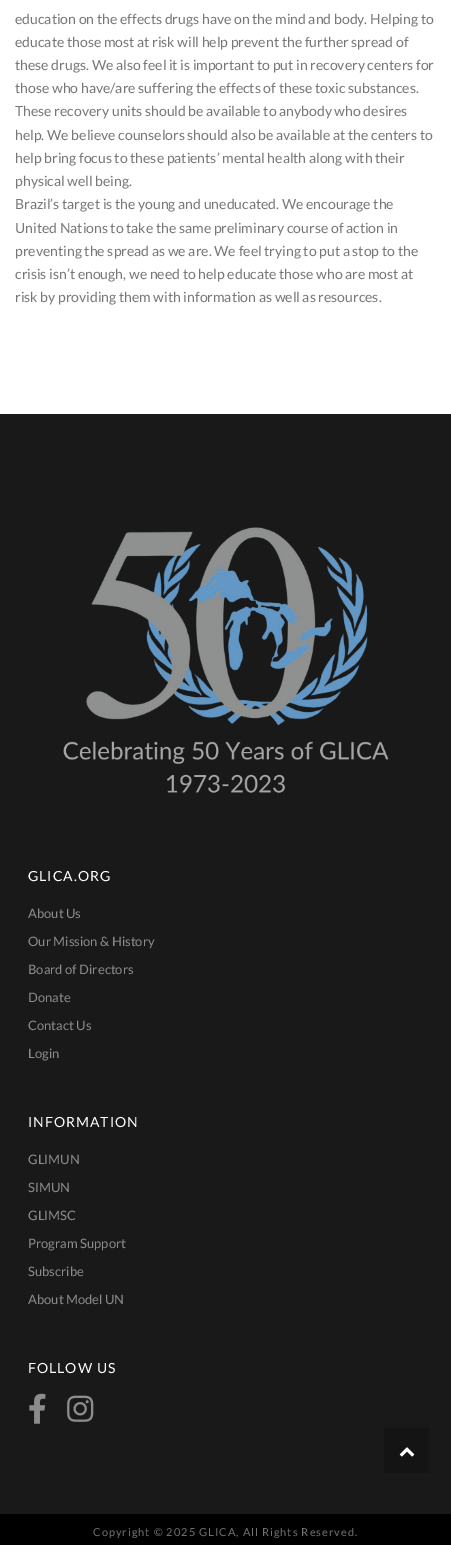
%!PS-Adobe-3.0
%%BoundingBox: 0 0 451 1545
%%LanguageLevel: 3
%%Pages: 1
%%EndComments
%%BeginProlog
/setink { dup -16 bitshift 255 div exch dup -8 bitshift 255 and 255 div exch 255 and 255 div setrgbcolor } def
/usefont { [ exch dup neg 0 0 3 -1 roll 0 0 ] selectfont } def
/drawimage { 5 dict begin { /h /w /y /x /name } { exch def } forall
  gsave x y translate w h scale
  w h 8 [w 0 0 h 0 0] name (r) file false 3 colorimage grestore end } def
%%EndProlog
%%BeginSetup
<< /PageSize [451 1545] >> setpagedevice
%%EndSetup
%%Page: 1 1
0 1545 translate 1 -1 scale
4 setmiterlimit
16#FFFFFF setink
0 0 451 1545 rectfill
/Lato-Regular 14 usefont
16#777777 setink
[
    [(education on the effects drugs have on the mind and body. Helping to) 15 24]
    [(educate those most at risk will help prevent the further spread of) 15 47]
    [(these drugs. We also feel it is important to put in recovery centers for) 15 70]
    [(those who have/are suffering the effects of these toxic substances.) 15 93]
    [(These recovery units should be available to anybody who desires) 15 116]
    [(help. We believe counselors should also be available at the centers to) 15 140]
    [(help bring focus to these patients’ mental health along with their) 15 163]
    [(physical well being.) 15 186]
    [(Brazil’s target is the young and uneducated. We encourage the) 15 209]
    [(United Nations to take the same preliminary course of action in) 15 233]
    [(preventing the spread as we are. We feel trying to put a stop to the) 15 256]
    [(crisis isn’t enough, we need to help educate those who are most at) 15 279]
    [(risk by providing them with information as well as resources.) 15 302]
] { aload pop moveto show } forall
16#191919 setink
0 414 451 1100 rectfill
(img1.raw) 63 527 326 266 drawimage
16#FFFFFF setink
28 881 moveto 1 0 (GLICA.ORG) ashow
/Lato-Regular 13 usefont
16#8C8C8C setink
[
    [(About Us) 28 918]
    [(Our Mission & History) 28 946]
    [(Board of Directors) 28 974]
    [(Donate) 28 1002]
    [(Contact Us) 28 1030]
    [(Login) 28 1058]
] { aload pop moveto show } forall
/Lato-Regular 14 usefont
16#FFFFFF setink
28 1127 moveto 1 0 (INFORMATION) ashow
/Lato-Regular 13 usefont
16#8C8C8C setink
[
    [(GLIMUN) 28 1164]
    [(SIMUN) 28 1192]
    [(GLIMSC) 28 1220]
    [(Program Support) 28 1248]
    [(Subscribe) 28 1276]
    [(About Model UN) 28 1304]
] { aload pop moveto show } forall
/Lato-Regular 14 usefont
16#FFFFFF setink
28 1373 moveto 1 0 (FOLLOW US) ashow
(img2.raw) 29 1393 17 31 drawimage
(img3.raw) 67 1395 27 27 drawimage
16#000000 setink
0 1514 451 31 rectfill
/Lato-Regular 11 usefont
16#707274 setink
93 1536 moveto 1 0 (Copyright © 2025 GLICA, All Rights Reserved.) ashow
16#141414 setink
384 1428 45 45 rectfill
(img4.raw) 399 1447 16 10 drawimage
showpage
%%EOF
